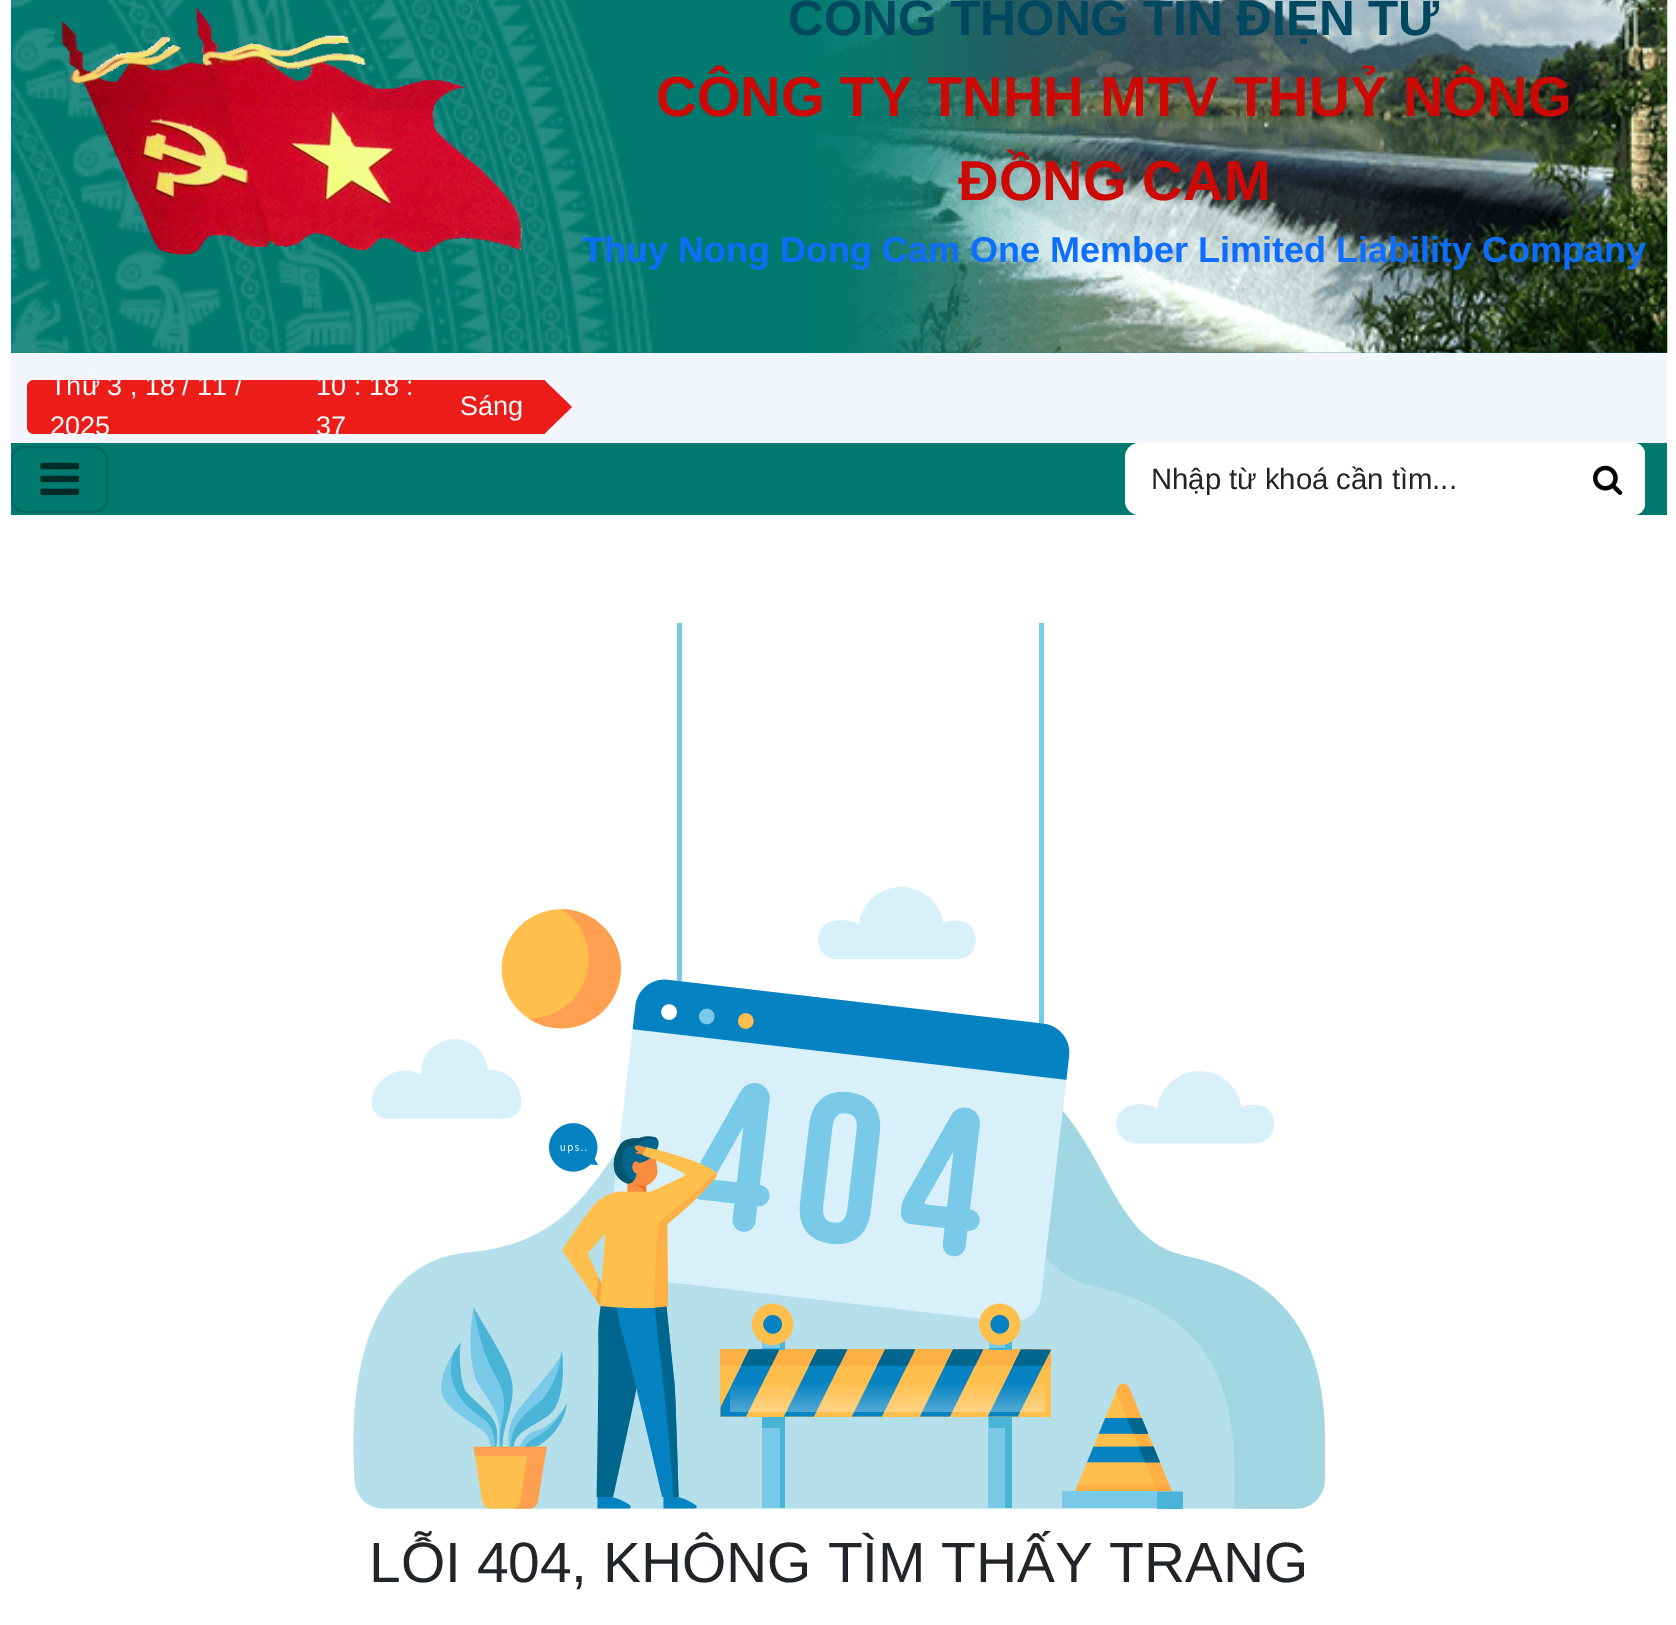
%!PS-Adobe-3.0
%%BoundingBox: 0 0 1676 1625
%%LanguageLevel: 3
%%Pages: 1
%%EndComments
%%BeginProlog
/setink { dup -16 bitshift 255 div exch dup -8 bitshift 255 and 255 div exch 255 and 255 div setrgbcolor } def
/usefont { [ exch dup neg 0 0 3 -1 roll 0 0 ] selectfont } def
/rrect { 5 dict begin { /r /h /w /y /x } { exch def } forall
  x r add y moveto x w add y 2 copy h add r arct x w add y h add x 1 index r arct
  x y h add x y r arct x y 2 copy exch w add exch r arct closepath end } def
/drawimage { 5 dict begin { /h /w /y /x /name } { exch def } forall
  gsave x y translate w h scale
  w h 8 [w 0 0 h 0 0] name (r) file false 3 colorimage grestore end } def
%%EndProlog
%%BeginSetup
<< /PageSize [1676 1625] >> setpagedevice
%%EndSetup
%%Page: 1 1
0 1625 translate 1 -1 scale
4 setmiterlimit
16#FFFFFF setink
0 0 1676 1625 rectfill
16#007A6F setink
11 0 1656 353 rectfill
(img1.raw) 11 0 642 353 drawimage
(img2.raw) 62 0 460 256 drawimage
(img3.raw) 807 0 861 353 drawimage
/LiberationSans-Bold 49.5 usefont
16#004760 setink
788 35 moveto (CỔNG THÔNG TIN ĐIỆN TỬ) show
/LiberationSans-Bold 56.25 usefont
16#CC0904 setink
656 116 moveto (CÔNG TY TNHH MTV THUỶ NÔNG) show
958 200 moveto (ĐỒNG CAM) show
/LiberationSans-Bold 36 usefont
16#0D6EFD setink
582 262 moveto (Thuy Nong Dong Cam One Member Limited Liability Company) show
16#F2F6FB setink
11 353 1656 90 rectfill
16#EC1D19 setink
34 380 moveto 545 380 lineto 545 434 lineto 34 434 lineto 30 434 27 431 27 427 curveto 27 387 lineto 27 383 30 380 34 380 curveto closepath fill
/LiberationSans-Regular 27 usefont
16#FFFFFF setink
[
    [(Thứ 3 , 18 / 11 /) 50 395]
    [(2025) 50 435]
    [(10 : 18 :) 316 395]
    [(37) 316 435]
    [(Sáng) 460 415]
] { aload pop moveto show } forall
16#EC1D19 setink
544 434 moveto 544 380 lineto 572 407 lineto closepath fill
16#007A6F setink
11 443 1656 72 rectfill
16#00685E setink
2 setlinewidth
12 447 95 65 13 rrect stroke
(img4.raw) 40 462 40 33 drawimage
16#FFFFFF setink
1573 443 moveto 1634 443 lineto 1640 443 1645 448 1645 454 curveto 1645 504 lineto 1645 510 1640 515 1634 515 curveto 1573 515 lineto closepath fill
1139 443 moveto 1575 443 lineto 1575 515 lineto 1139 515 lineto 1131.5 515 1125 508.5 1125 501 curveto 1125 457 lineto 1125 449.5 1131.5 443 1139 443 curveto closepath fill
/LiberationSans-Regular 29.25 usefont
16#212529 setink
1151 489 moveto (Nhập từ khoá cần tìm...) show
(img5.raw) 1593 465 30 30 drawimage
(img6.raw) 353 623 972 886 drawimage
/LiberationSans-Regular 56.9 usefont
369 1582 moveto (LỖI 404, KHÔNG TÌM THẤY TRANG) show
showpage
%%EOF
